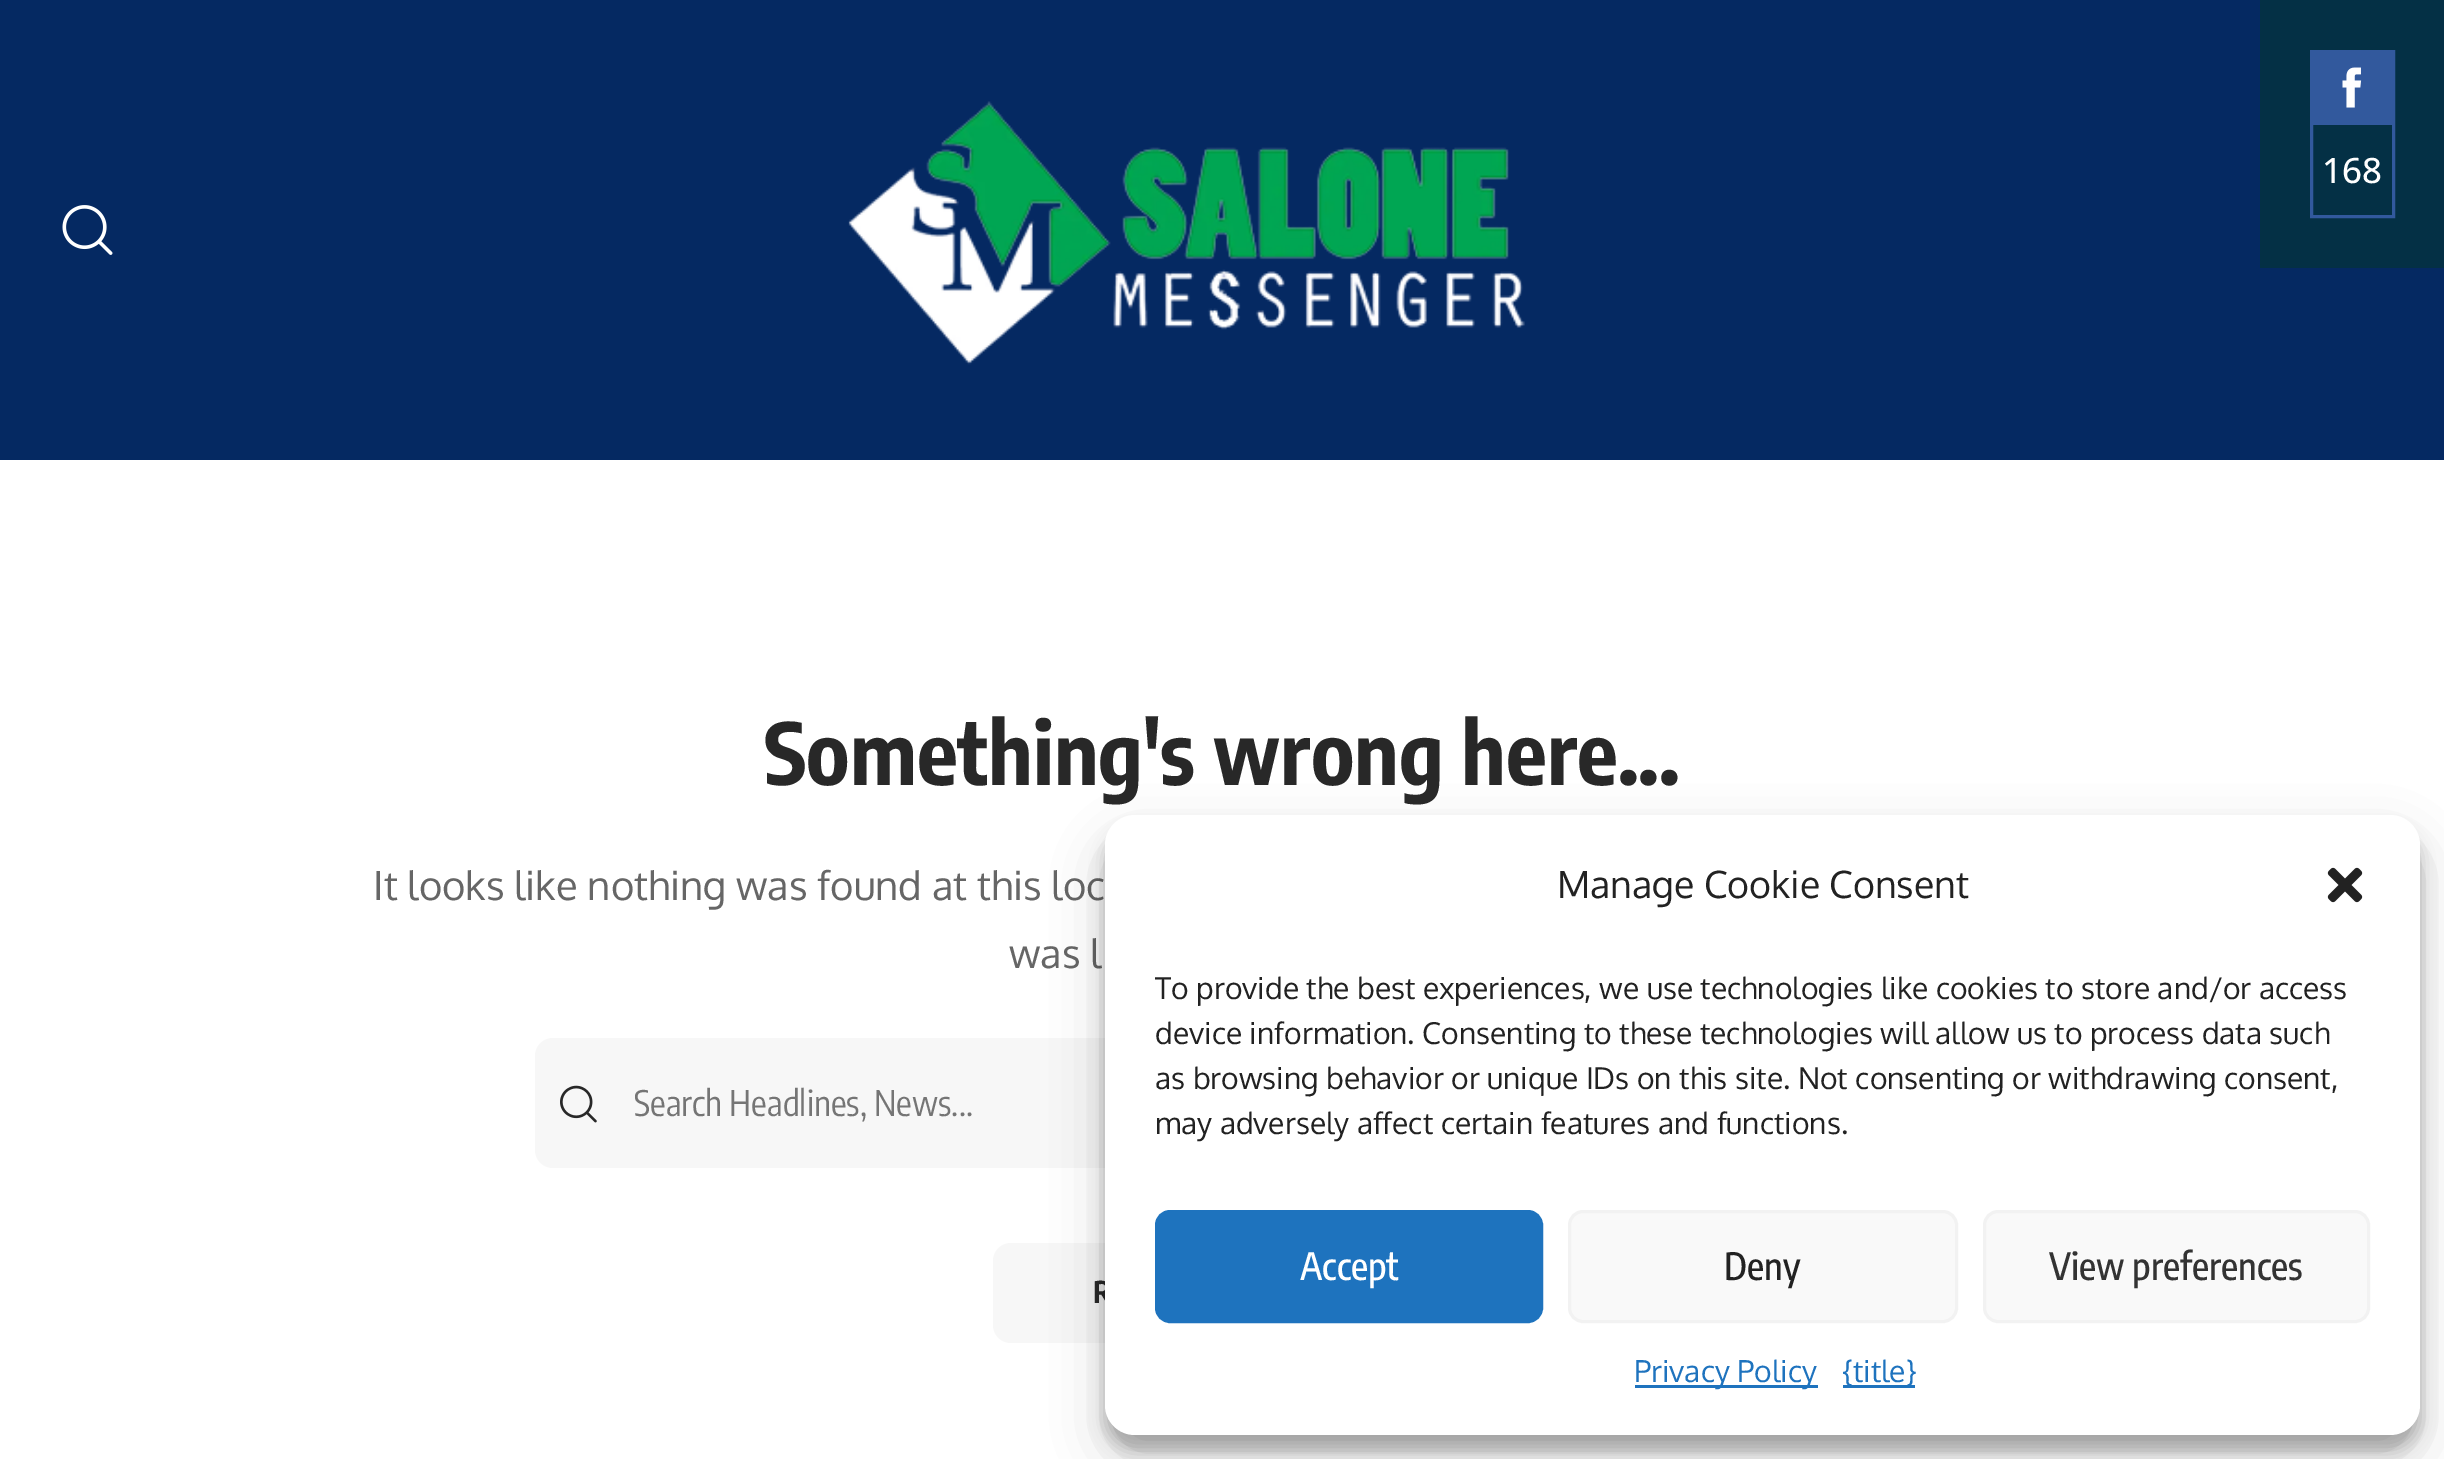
%!PS-Adobe-3.0
%%BoundingBox: 0 0 2444 1459
%%LanguageLevel: 3
%%Pages: 1
%%EndComments
%%BeginProlog
/setink { dup -16 bitshift 255 div exch dup -8 bitshift 255 and 255 div exch 255 and 255 div setrgbcolor } def
/usefont { [ exch dup neg 0 0 3 -1 roll 0 0 ] selectfont } def
/setalpha { dup .setfillconstantalpha .setstrokeconstantalpha } def
/rrect { 5 dict begin { /r /h /w /y /x } { exch def } forall
  x r add y moveto x w add y 2 copy h add r arct x w add y h add x 1 index r arct
  x y h add x y r arct x y 2 copy exch w add exch r arct closepath end } def
/softshadow { 12 dict begin { /a /b /q /h /w /y /x } { exch def } forall gsave /was 0 def
  9 -2 -9 { dup b mul 4 div /e exch def 1 sub .425 mul 2.718 exch exp 1 add a .99 .min exch div /now exch def
    1 1 now sub 1 was sub div sub setalpha /was now def
    w h .min e 2 mul add 0 gt { x e sub y e sub w e 2 mul add h e 2 mul add
      q e add b .6 mul add w h .min 2 div e add .min 0 .max rrect fill } if } for grestore end } def
/drawimage { 5 dict begin { /h /w /y /x /name } { exch def } forall
  gsave x y translate w h scale
  w h 8 [w 0 0 h 0 0] name (r) file false 3 colorimage grestore end } def
%%EndProlog
%%BeginSetup
<< /PageSize [2444 1459] /PageUsesTransparency true >> setpagedevice
%%EndSetup
%%Page: 1 1
0 .pushpdf14devicefilter
0 1459 translate 1 -1 scale
4 setmiterlimit
16#FFFFFF setink
0 0 2444 1459 rectfill
16#052962 setink
0 0 2444 460 rectfill
16#043045 setink
2260 0 184 268 rectfill
16#32599D setink
3 setlinewidth
2311.5 51.5 82 165 rectstroke
2313 53 79 72 rectfill
(img1.raw) 2342 67 20 41 drawimage
/OpenSans-Medium 35 usefont
16#FFFFFF setink
2322 183 moveto (168) show
(img2.raw) 62 205 51 50 drawimage
(img3.raw) 848 101 677 264 drawimage
/EncodeSansCondensed-Bold 85 usefont
16#282828 setink
764 785 moveto (Something's wrong here...) show
/Oxygen-Regular 40 usefont
16#666666 setink
373 900 moveto (It looks like nothing was found at this loc) show
1009 968 moveto (was l) show
16#F7F7F7 setink
535 1038 1375 130 18 rrect fill
(img4.raw) 560 1085 37 38 drawimage
/EncodeSansCondensed-Regular 35 usefont
16#757575 setink
634 1116 moveto (Search Headlines, News...) show
16#F7F7F7 setink
993 1243 460 100 18 rrect fill
/EncodeSansCondensed-Bold 30 usefont
16#282828 setink
1093 1303 moveto (R) show
16#000000 setink
1105 830 1315 620 30 7.5 0.23 softshadow
1105 840 1315 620 30 25 0.19 softshadow
16#FFFFFF setink
1105 815 1315 620 30 rrect fill
/Oxygen-Regular 37.5 usefont
16#222222 setink
1557 898 moveto (Manage Cookie Consent) show
(img5.raw) 2327 867 36 36 drawimage
/Oxygen-Regular 30 usefont
[
    [(To provide the best experiences, we use technologies like cookies to store and/or access) 1155 999]
    [(device information. Consenting to these technologies will allow us to process data such) 1155 1044]
    [(as browsing behavior or unique IDs on this site. Not consenting or withdrawing consent,) 1155 1089]
    [(may adversely affect certain features and functions.) 1155 1134]
] { aload pop moveto show } forall
16#1E73BE setink
1156.5 1211.5 385 110 13.5 rrect gsave fill grestore
stroke
/EncodeSansCondensed-Medium 37.5 usefont
16#FFFFFF setink
1300 1280 moveto (Accept) show
16#F9F9F9 setink
1569.5 1211.5 387 110 13.5 rrect gsave fill grestore
16#F2F2F2 setink
stroke
16#222222 setink
1724 1280 moveto (Deny) show
16#F9F9F9 setink
1984.5 1211.5 384 110 13.5 rrect gsave fill grestore
16#F2F2F2 setink
stroke
16#333333 setink
2049 1280 moveto (View preferences) show
16#1E73BE setink
1635 1385 183 3 rectfill
/Oxygen-Regular 30 usefont
1634 1382 moveto (Privacy Policy) show
1843 1385 72 3 rectfill
1842 1382 moveto ({title}) show
.poppdf14devicefilter showpage
%%EOF
